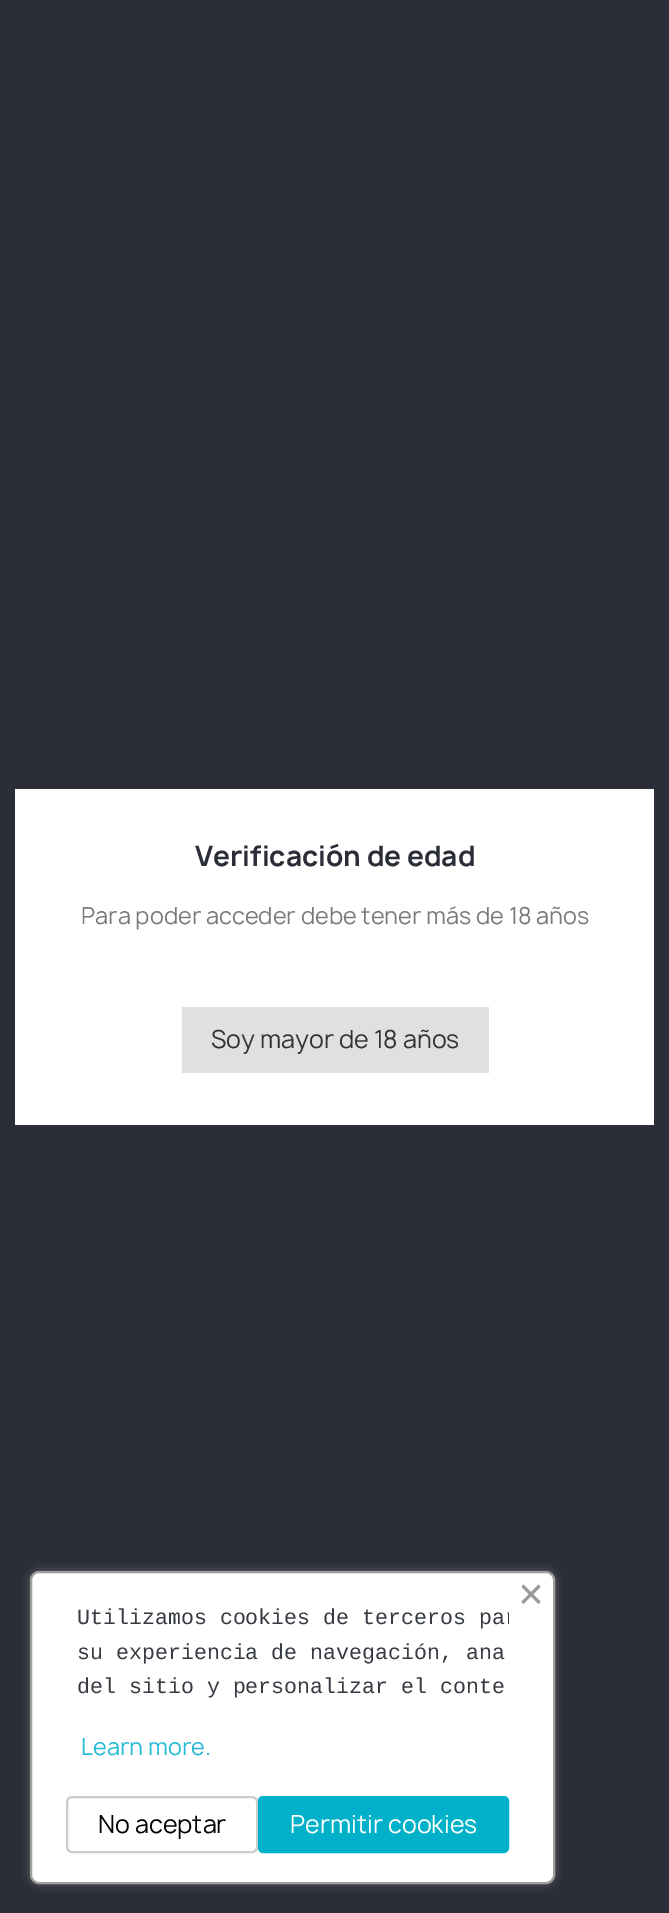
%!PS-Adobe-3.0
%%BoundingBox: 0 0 669 1913
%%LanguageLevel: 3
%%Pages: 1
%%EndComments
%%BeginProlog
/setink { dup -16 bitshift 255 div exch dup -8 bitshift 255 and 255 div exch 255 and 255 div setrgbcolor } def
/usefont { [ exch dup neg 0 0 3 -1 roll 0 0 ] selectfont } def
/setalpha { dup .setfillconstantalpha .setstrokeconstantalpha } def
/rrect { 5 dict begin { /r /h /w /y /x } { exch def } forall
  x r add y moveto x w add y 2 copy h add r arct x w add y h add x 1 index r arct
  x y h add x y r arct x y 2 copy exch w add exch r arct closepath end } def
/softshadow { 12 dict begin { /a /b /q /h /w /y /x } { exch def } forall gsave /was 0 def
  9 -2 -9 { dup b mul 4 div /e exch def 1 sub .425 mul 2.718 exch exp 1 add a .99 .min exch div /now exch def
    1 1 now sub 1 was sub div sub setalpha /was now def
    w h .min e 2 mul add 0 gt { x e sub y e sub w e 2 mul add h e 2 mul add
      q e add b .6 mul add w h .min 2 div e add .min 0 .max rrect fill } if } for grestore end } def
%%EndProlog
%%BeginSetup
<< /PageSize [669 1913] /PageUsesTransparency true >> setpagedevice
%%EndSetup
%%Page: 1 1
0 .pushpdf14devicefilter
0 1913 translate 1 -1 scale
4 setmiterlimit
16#2B2E38 setink
0 0 669 1913 rectfill
16#FFFFFF setink
15 789 639 336 rectfill
/Manrope-Bold 27 usefont
16#2B2E38 setink
195 866 moveto (Verificación de edad) show
/Manrope-Regular 22.5 usefont
16#7A7A7A setink
81 924 moveto (Para poder acceder debe tener más de 18 años) show
16#E0E0E0 setink
182 1007 307 66 rectfill
/Manrope-Regular 24 usefont
16#333333 setink
211 1048 moveto (Soy mayor de 18 años) show
16#9E9E9E setink
33 1574 519 307 6 5 1 softshadow
16#FFFFFF setink
31 1572 523 311 8 rrect gsave fill grestore
16#9E9E9E setink
2 setlinewidth
stroke
16#999999 setink
521.5 1601.5 moveto 538.5 1584.5 lineto 540.5 1587 lineto 523.5 1604 lineto closepath fill
523.5 1584.5 moveto 540.5 1601.5 lineto 538.5 1604 lineto 521.5 1587 lineto closepath fill
gsave
77 1602 432 104 rectclip
/LiberationMono-Regular 21.6 usefont
16#363A42 setink
77 1624 moveto (Utilizamos cookies de terceros par) show
grestore
/LiberationMono-Regular 21.6 usefont
16#363A42 setink
77 1659 moveto (su experiencia de navegación, ana) show
77 1693 moveto (del sitio y personalizar el conte) show
/Manrope-Regular 22.5 usefont
16#24B9D7 setink
81 1755 moveto (Learn more.) show
16#CCCCCC setink
67 1797 190 55 5 rrect stroke
/Manrope-Regular 24 usefont
16#000000 setink
98 1833 moveto (No aceptar) show
16#00B1C9 setink
259 1797 249 55 4 rrect gsave fill grestore
stroke
16#FFFFFF setink
290 1833 moveto (Permitir cookies) show
.poppdf14devicefilter showpage
%%EOF
